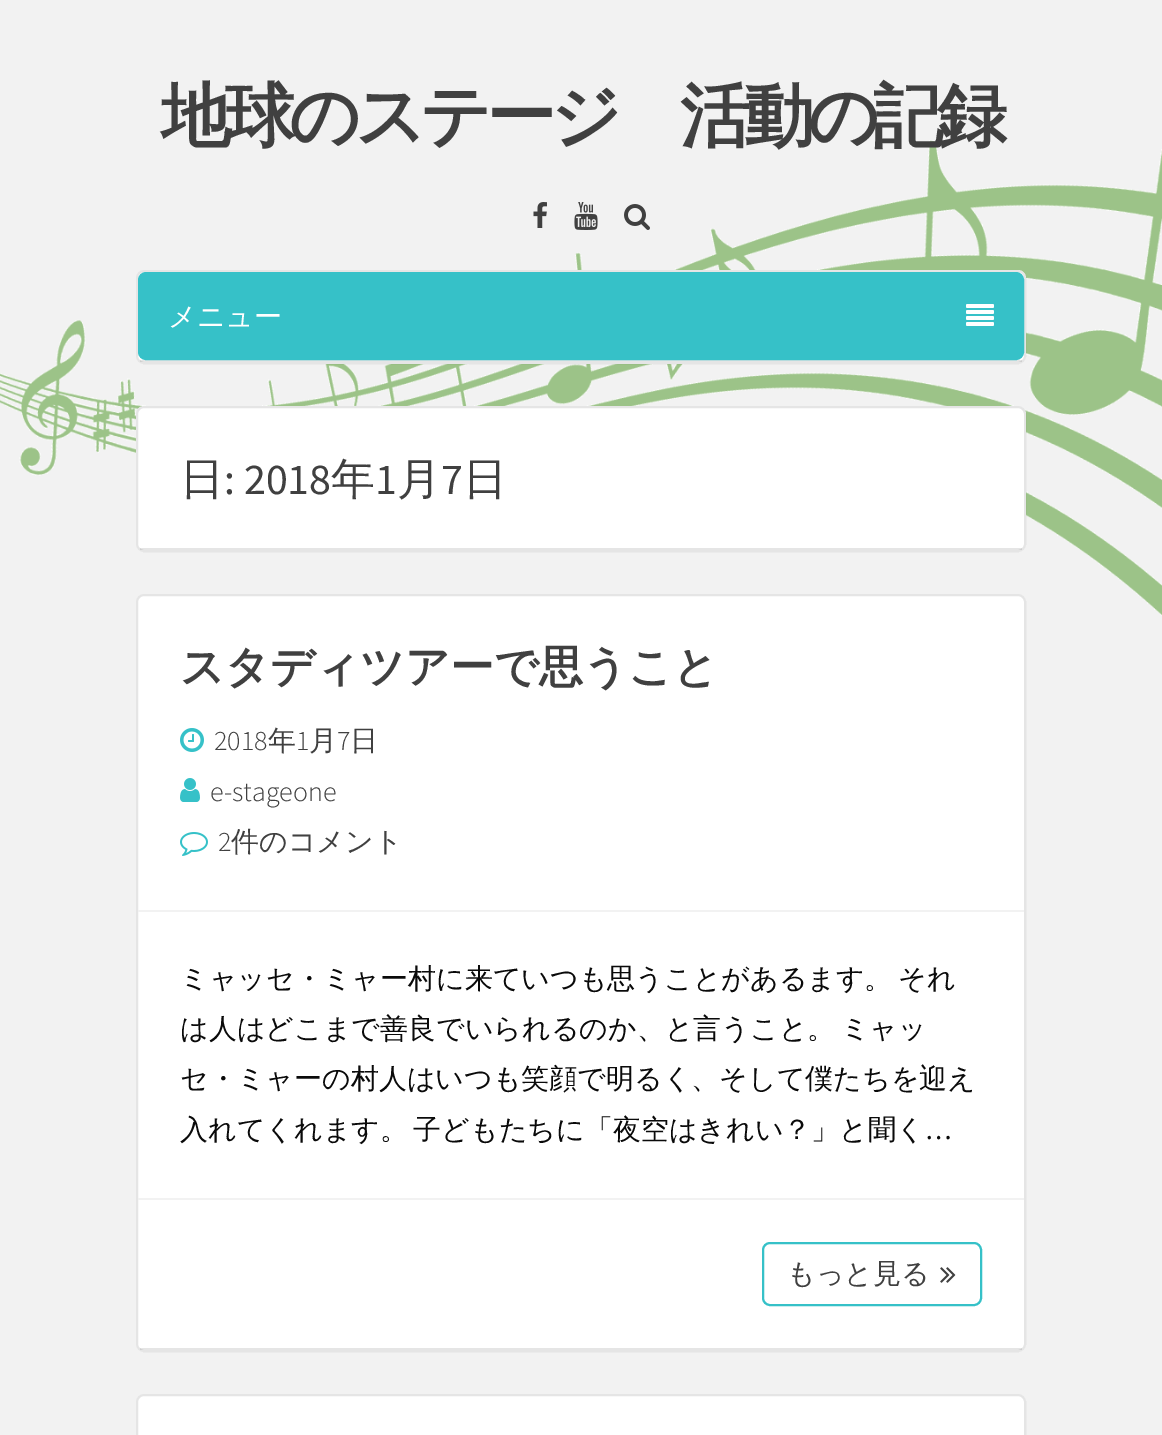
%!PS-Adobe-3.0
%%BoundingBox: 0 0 1162 1435
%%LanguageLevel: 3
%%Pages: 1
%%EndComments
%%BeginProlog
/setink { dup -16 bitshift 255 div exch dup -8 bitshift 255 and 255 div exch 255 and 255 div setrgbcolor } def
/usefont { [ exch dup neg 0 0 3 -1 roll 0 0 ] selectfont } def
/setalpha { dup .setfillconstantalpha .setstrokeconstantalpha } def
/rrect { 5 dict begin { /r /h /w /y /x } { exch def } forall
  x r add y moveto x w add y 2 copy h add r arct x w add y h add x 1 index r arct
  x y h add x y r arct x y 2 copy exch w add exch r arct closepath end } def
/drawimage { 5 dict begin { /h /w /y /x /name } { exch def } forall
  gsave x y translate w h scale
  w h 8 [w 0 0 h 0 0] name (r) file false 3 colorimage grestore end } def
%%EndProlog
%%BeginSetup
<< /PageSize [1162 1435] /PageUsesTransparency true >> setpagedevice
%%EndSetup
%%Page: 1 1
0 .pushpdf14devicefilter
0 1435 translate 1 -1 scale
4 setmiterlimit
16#F2F2F2 setink
0 0 1162 1435 rectfill
(img1.raw) 0 140 1162 476 drawimage
/WenQuanYiZenHei-Bold 70 usefont
16#404040 setink
161 140 moveto -6 0 (地球のステージ　活動の記録) ashow
(img2.raw) 533 202 14 26 drawimage
(img3.raw) 574 202 24 28 drawimage
(img4.raw) 624 204 26 26 drawimage
16#FFFFFF setink
136 270 890 94 8 rrect fill
0.1 setalpha
16#000000 setink
2 setlinewidth
137 271 888 92 7 rrect stroke
140 360 882 2 rectfill
1 setalpha
16#36C1C8 setink
139 273 884 86 7 rrect gsave fill grestore
stroke
/WenQuanYiZenHei-Medium 28 usefont
16#FFFFFF setink
168 326 moveto (メニュー) show
(img5.raw) 966 304 28 22 drawimage
136 406 890 146 8 rrect fill
0.1 setalpha
16#000000 setink
137 407 888 144 7 rrect stroke
140 548 882 2 rectfill
/WenQuanYiZenHei-Medium 44 usefont
1 setalpha
16#404040 setink
180 494 moveto (日) show
/SourceSansPro-Regular 44 usefont
224 494 moveto (: 2018) show
/WenQuanYiZenHei-Medium 44 usefont
331 494 moveto (年) show
/SourceSansPro-Regular 44 usefont
375 494 moveto (1) show
/WenQuanYiZenHei-Medium 44 usefont
397 494 moveto (月) show
/SourceSansPro-Regular 44 usefont
441 494 moveto (7) show
/WenQuanYiZenHei-Medium 44 usefont
463 494 moveto (日) show
16#FFFFFF setink
136 594 890 758 8 rrect fill
0.1 setalpha
16#000000 setink
137 595 888 756 7 rrect stroke
140 1348 882 2 rectfill
1 setalpha
16#F2F2F2 setink
138 910 886 2 rectfill
/WenQuanYiZenHei-Bold 44 usefont
16#404040 setink
180 682 moveto (スタディツアーで思うこと) show
(img6.raw) 180 728 24 24 drawimage
/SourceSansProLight-Light 28 usefont
214 750 moveto (2018) show
/WenQuanYiZenHei-Medium 28 usefont
268 750 moveto (年) show
/SourceSansProLight-Light 28 usefont
296 750 moveto (1) show
/WenQuanYiZenHei-Medium 28 usefont
309 750 moveto (月) show
/SourceSansProLight-Light 28 usefont
337 750 moveto (7) show
/WenQuanYiZenHei-Medium 28 usefont
350 750 moveto (日) show
(img7.raw) 180 778 20 24 drawimage
/SourceSansProLight-Light 28 usefont
210 801 moveto (e-stageone) show
(img8.raw) 180 832 28 24 drawimage
218 851 moveto (2) show
/WenQuanYiZenHei-Medium 28 usefont
231 851 moveto (件のコメント) show
16#0A0A0A setink
180 988 moveto -3 0 32 (ミャッセ・ミャー村に来ていつも思うことがあるます。 それ) widthshow
180 1038 moveto -3 0 32 (は人はどこまで善良でいられるのか、と言うこと。 ミャッ) widthshow
180 1088 moveto (セ・ミャーの村人はいつも笑顔で明るく、そして僕たちを迎え) show
180 1139 moveto -3 0 32 (入れてくれます。 子どもたちに「夜空はきれい？」と聞く) widthshow
/SourceSansPro-Regular 28 usefont
925 1139 moveto (…) show
16#F2F2F2 setink
138 1198 886 2 rectfill
16#36C1C8 setink
763 1243 218 62 7 rrect stroke
/WenQuanYiZenHei-Medium 28 usefont
16#404040 setink
787 1283 moveto (もっと見る) show
(img9.raw) 940 1267 16 16 drawimage
16#FFFFFF setink
136 1394 890 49 8 rrect fill
0.1 setalpha
16#000000 setink
137 1395 888 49 7 rrect stroke
.poppdf14devicefilter showpage
%%EOF
